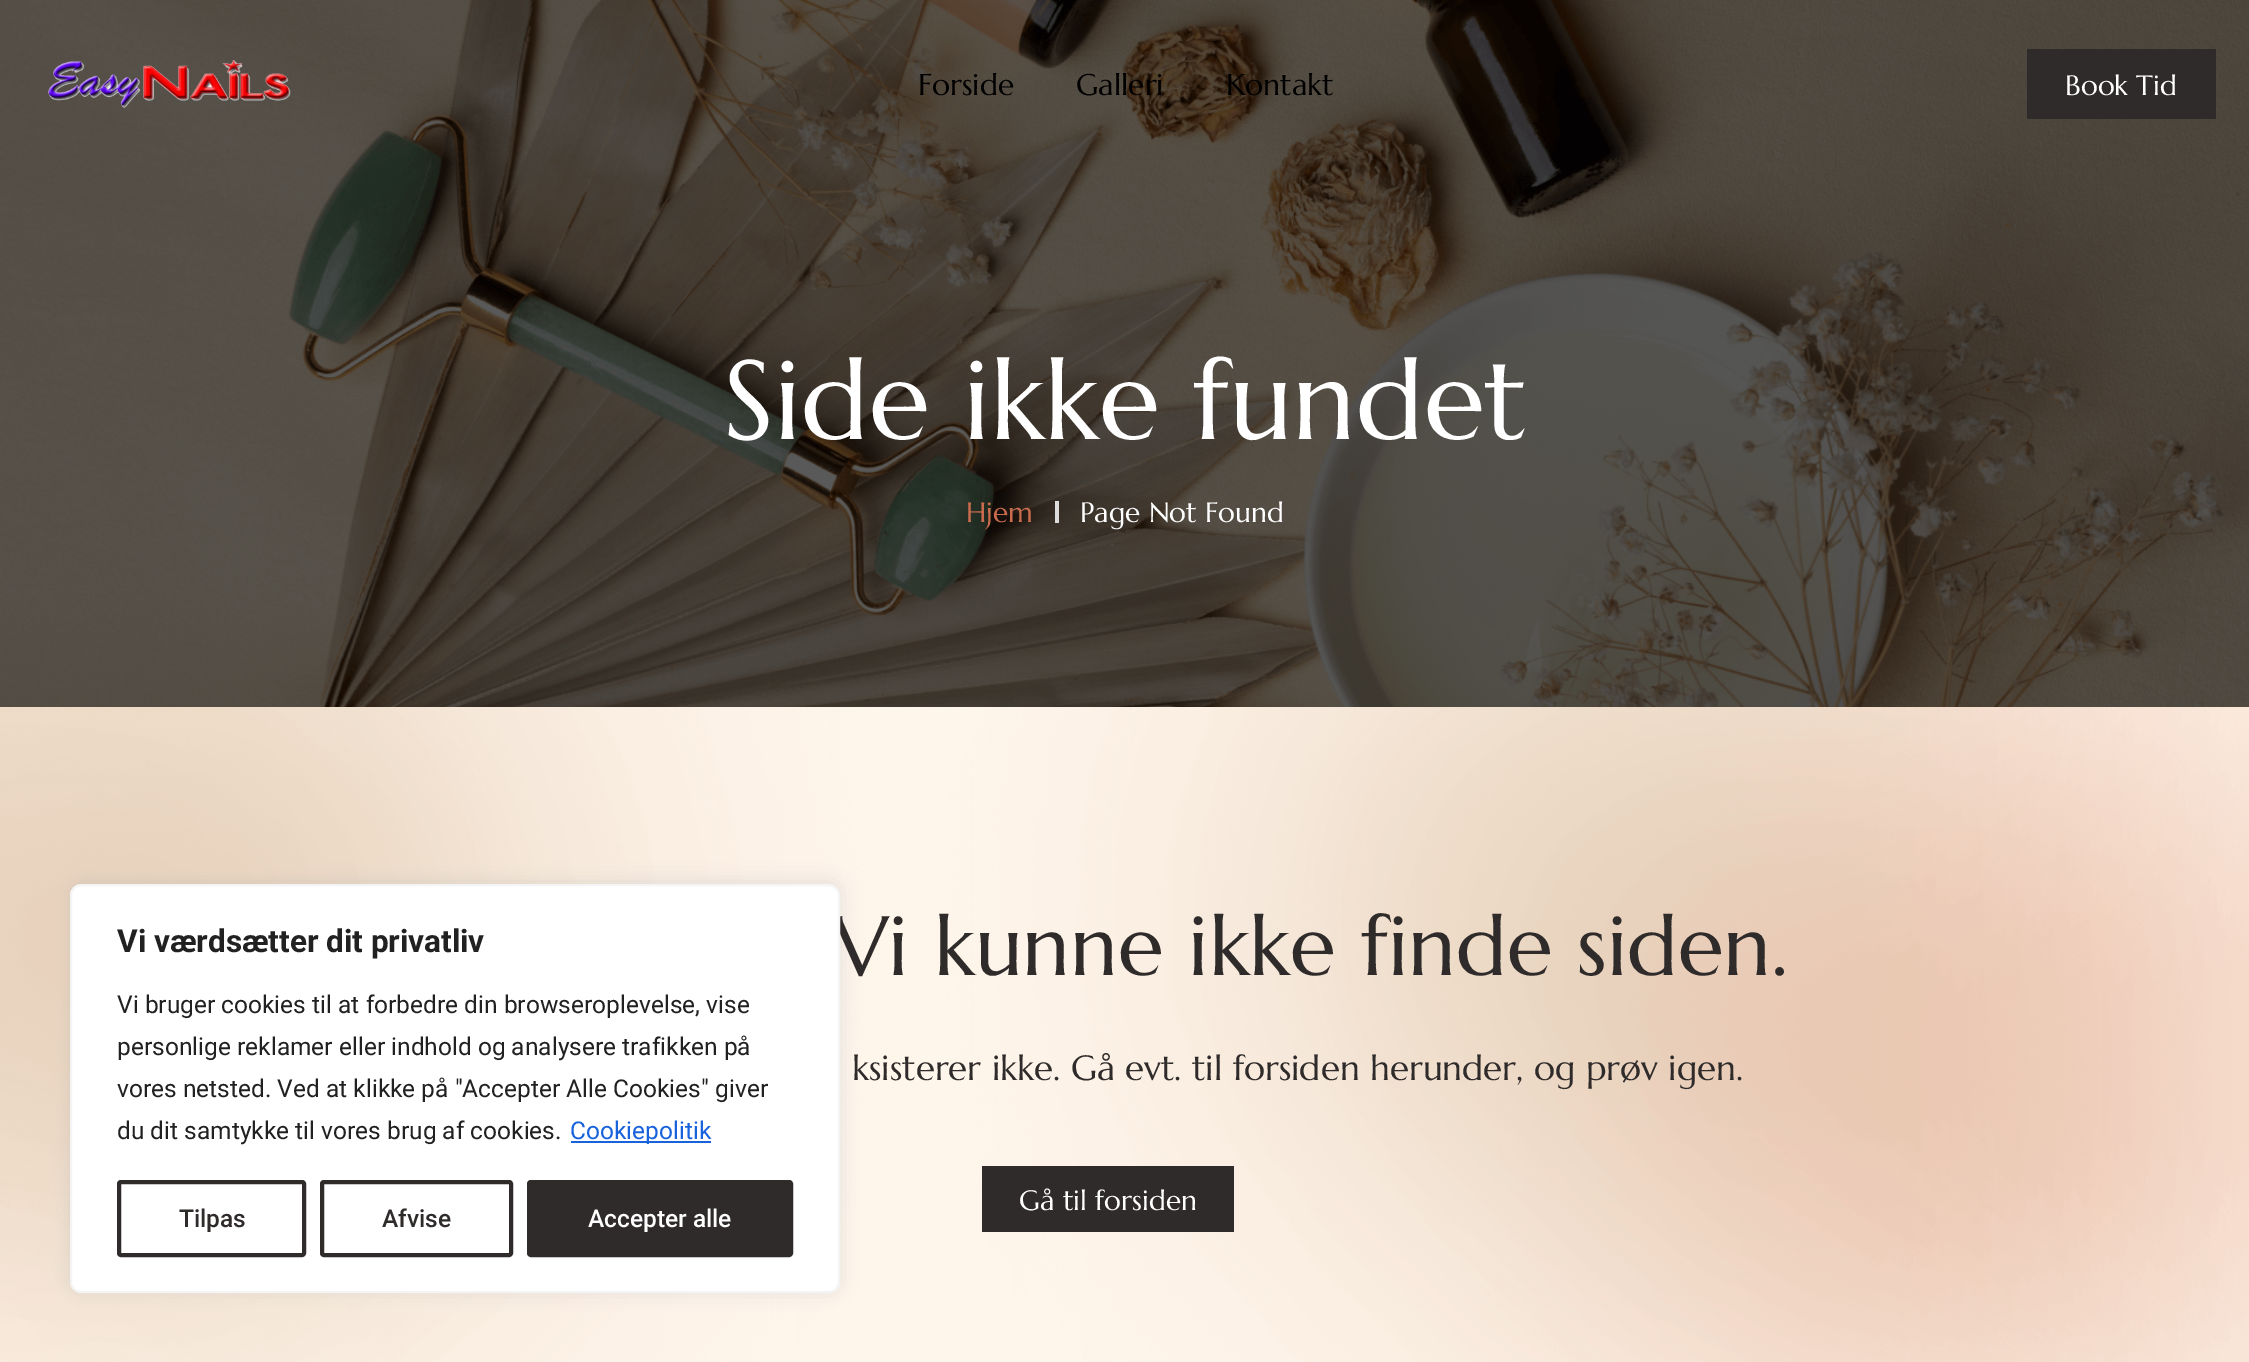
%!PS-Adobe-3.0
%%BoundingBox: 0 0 2249 1362
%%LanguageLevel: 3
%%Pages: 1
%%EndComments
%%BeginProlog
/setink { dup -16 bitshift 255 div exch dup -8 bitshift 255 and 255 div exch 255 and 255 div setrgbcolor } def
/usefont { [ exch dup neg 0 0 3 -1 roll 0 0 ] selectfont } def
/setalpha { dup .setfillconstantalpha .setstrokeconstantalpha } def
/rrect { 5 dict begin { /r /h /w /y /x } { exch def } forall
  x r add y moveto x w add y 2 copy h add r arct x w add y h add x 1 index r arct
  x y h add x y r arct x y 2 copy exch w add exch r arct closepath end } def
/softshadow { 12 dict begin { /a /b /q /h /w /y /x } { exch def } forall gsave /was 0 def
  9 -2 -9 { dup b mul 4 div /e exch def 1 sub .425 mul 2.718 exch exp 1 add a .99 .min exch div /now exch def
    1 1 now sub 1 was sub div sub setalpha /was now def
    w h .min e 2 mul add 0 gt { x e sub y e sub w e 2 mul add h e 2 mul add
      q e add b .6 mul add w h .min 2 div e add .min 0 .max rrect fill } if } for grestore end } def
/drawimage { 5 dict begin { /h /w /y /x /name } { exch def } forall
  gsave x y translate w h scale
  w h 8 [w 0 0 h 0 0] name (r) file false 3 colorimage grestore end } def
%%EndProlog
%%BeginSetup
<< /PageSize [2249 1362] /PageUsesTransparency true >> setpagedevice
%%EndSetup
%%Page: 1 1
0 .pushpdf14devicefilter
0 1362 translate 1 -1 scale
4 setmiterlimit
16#FFFFFF setink
0 0 2249 1362 rectfill
(img2.raw) 0 0 2249 707 drawimage
(img1.raw) 48 60 243 48 drawimage
/Marcellus-Regular 30 usefont
16#000000 setink
[
    [(Forside) 918 95]
    [(Galleri) 1076 95]
    [(Kontakt) 1226 95]
] { aload pop moveto show } forall
16#2F2B2A setink
2027 49 189 70 rectfill
/Marcellus-Regular 28 usefont
16#FFFFFF setink
2065 95 moveto (Book Tid) show
(img3.raw) 0 707 2249 655 drawimage
16#ACABAB setink
70 882 770 410 11 9 0.3 softshadow
/Marcellus-Regular 84 usefont
16#2F2B2A setink
833 975 moveto (Vi kunne ikke finde siden.) show
16#FFFFFF setink
71 885 768 407 10 rrect gsave fill grestore
16#F4F4F4 setink
2 setlinewidth
stroke
/Roboto-Bold 31.5 usefont
16#212121 setink
117 952 moveto (Vi værdsætter dit privatliv) show
/Roboto-Regular 24.5 usefont
[
    [(Vi bruger cookies til at forbedre din browseroplevelse, vise) 117 1013]
    [(personlige reklamer eller indhold og analysere trafikken på) 117 1055]
    [(vores netsted. Ved at klikke på "Accepter Alle Cookies" giver) 117 1097]
    [(du dit samtykke til vores brug af cookies.) 117 1139]
] { aload pop moveto show } forall
16#1863DC setink
571 1141 140 2 rectfill
570 1139 moveto (Cookiepolitik) show
16#2F2B2A setink
4 setlinewidth
119 1182 185 73 2 rrect stroke
/Roboto-Medium 24.5 usefont
179 1227 moveto (Tilpas) show
322 1182 189 73 2 rrect stroke
382 1227 moveto (Afvise) show
529 1182 262 73 2 rrect gsave fill grestore
stroke
16#FFFFFF setink
588 1227 moveto (Accepter alle) show
/Marcellus-Regular 112 usefont
723 439 moveto (Side ikke fundet) show
/Marcellus-Regular 28 usefont
16#C96C4E setink
966 522 moveto (Hjem) show
16#DDDDDD setink
1055 501 4 22 rectfill
16#FFFFFF setink
1080 522 moveto (Page Not Found) show
/Marcellus-Regular 35 usefont
16#2F2B2A setink
852 1080 moveto (ksisterer ikke. Gå evt. til forsiden herunder, og prøv igen.) show
982 1166 252 66 rectfill
/Marcellus-Regular 28 usefont
16#FFFFFF setink
1019 1210 moveto (Gå til forsiden) show
.poppdf14devicefilter showpage
%%EOF
